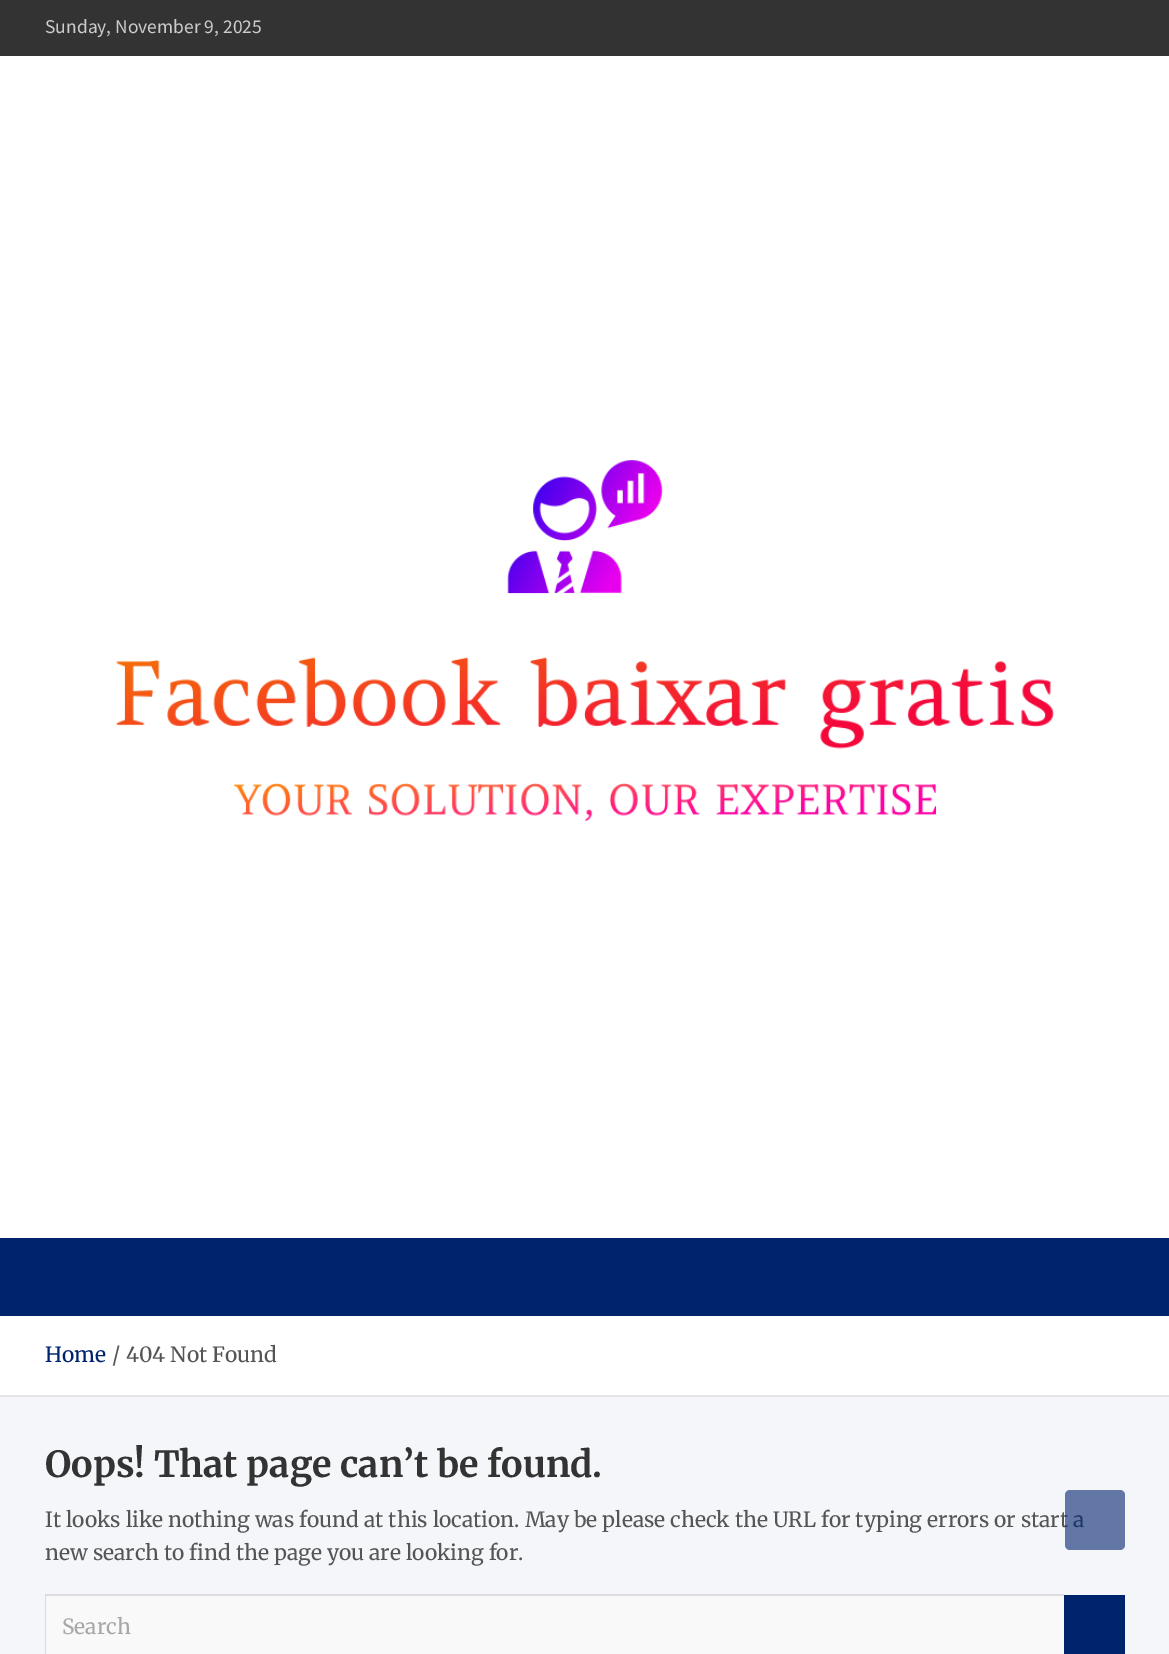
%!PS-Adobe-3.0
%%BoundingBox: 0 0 1169 1654
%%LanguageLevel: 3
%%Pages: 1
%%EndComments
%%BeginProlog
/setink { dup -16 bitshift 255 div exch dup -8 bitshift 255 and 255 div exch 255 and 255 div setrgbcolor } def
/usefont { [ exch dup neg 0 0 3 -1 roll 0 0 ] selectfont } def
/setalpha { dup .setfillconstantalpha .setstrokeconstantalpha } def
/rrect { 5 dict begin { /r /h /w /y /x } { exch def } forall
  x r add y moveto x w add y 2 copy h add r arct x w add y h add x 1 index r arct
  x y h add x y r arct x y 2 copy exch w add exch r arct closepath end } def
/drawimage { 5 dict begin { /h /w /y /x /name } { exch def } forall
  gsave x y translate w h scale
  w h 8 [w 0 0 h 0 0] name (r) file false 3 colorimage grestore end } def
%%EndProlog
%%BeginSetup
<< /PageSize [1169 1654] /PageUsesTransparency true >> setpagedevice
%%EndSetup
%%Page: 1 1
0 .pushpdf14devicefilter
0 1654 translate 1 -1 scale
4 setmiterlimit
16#F4F6F9 setink
0 0 1169 1654 rectfill
16#333333 setink
0 0 1169 56 rectfill
/SourceSansPro-Regular 19.5 usefont
16#CCCCCC setink
45 33 moveto (Sunday, November 9, 2025) show
16#FFFFFF setink
0 56 1169 1182 rectfill
(img1.raw) 116 460 938 361 drawimage
[
    [0 1238 1169 78 16#00236E]
    [0 1316 1169 79 16#FFFFFF]
    [0 1395 1169 2 16#E6E6E6]
] { aload pop setink rectfill } forall
/Merriweather-Regular 21 usefont
16#00236E setink
45 1362 moveto (Home) show
16#555555 setink
112 1362 moveto (/) show
126 1362 moveto (404 Not Found) show
/Merriweather-Bold 36 usefont
16#333333 setink
45 1477 moveto (Oops! That page can’t be found.) show
/Merriweather-Regular 21 usefont
16#555555 setink
45 1527 moveto (It looks like nothing was found at this location. May be please check the URL for typing errors or start a) show
45 1560 moveto (new search to find the page you are looking for.) show
16#F9F9F9 setink
47 1596 1017 58 rectfill
16#DCDDE0 setink
45 1594 moveto 1064 1594 lineto 1064 1596 lineto 46 1596 lineto closepath fill
0.1 setalpha
16#000000 setink
45 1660 moveto 45 1594 lineto 46 1596 lineto 46 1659 lineto closepath fill
1 setalpha
16#A7A7A7 setink
62 1634 moveto (Search) show
16#00236E setink
1064 1595 61 59 rectfill
0.6 setalpha
1065 1490 60 60 5 rrect fill
.poppdf14devicefilter showpage
%%EOF
